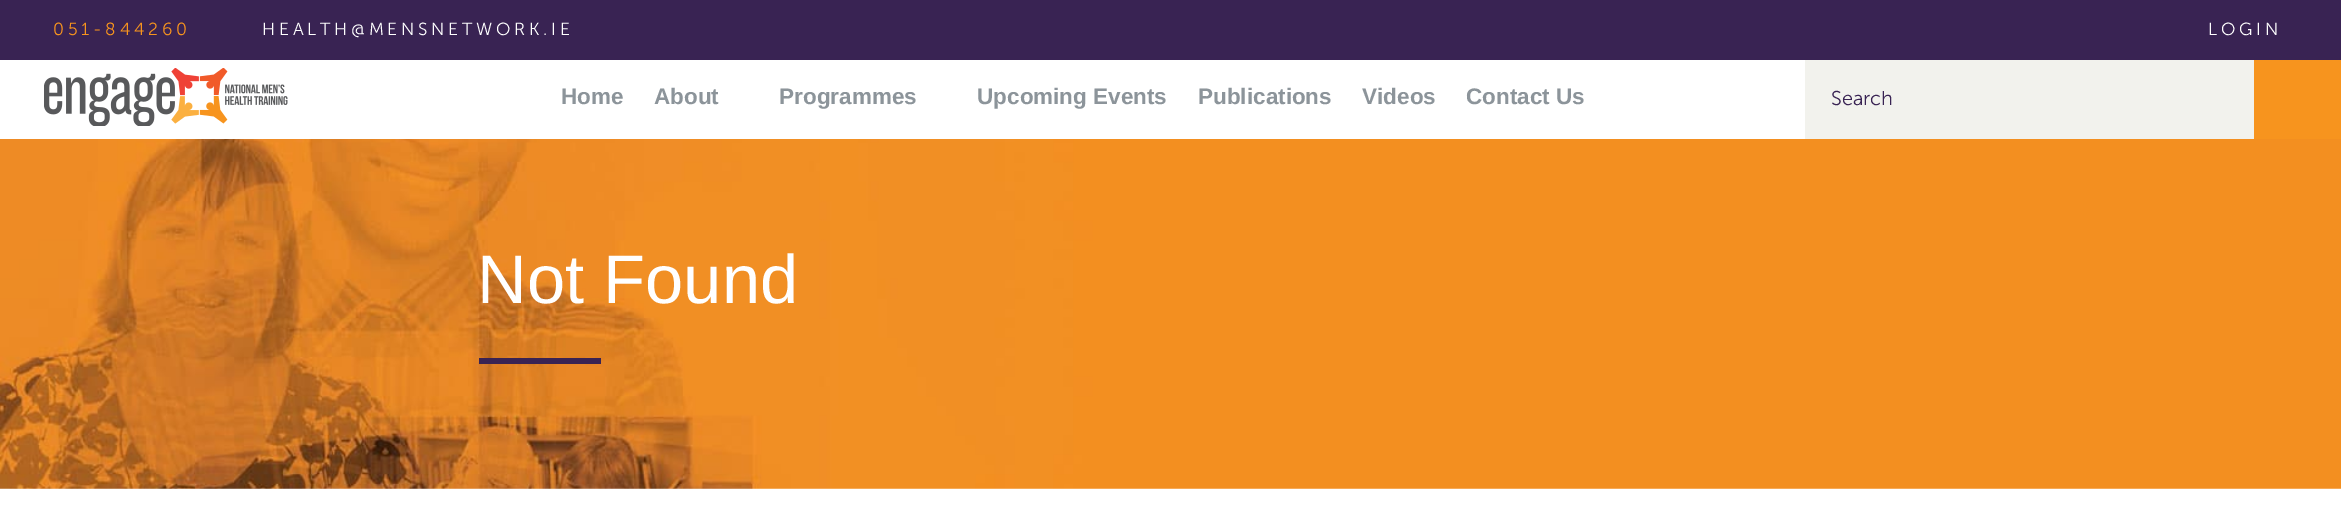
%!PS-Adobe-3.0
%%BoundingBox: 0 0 2341 510
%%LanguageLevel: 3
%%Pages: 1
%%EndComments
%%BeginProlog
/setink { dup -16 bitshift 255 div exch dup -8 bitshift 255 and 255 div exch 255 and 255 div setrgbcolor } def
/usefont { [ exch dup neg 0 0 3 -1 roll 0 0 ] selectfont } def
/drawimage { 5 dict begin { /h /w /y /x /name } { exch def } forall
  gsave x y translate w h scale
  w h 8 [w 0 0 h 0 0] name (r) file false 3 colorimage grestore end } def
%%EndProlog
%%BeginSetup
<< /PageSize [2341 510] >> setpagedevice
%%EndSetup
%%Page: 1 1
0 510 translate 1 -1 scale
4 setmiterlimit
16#FFFFFF setink
0 0 2341 510 rectfill
16#392353 setink
0 0 2341 60 rectfill
/MuseoSans-Light 17.5 usefont
16#F7941E setink
53 35 moveto 3.75 0 (051-844260) ashow
16#FFFFFF setink
262 35 moveto 3.75 0 (HEALTH@MENSNETWORK.IE) ashow
2208 35 moveto 3.75 0 (LOGIN) ashow
(img1.raw) 44 68 244 58 drawimage
/LiberationSans-Bold 22.5 usefont
16#8C949A setink
[
    [(Home) 561 104]
    [(About) 654 104]
    [(Programmes) 779 104]
    [(Upcoming Events) 977 104]
    [(Publications) 1198 104]
    [(Videos) 1362 104]
    [(Contact Us) 1466 104]
] { aload pop moveto show } forall
16#F2F2ED setink
1805 60 449 79 rectfill
/MuseoSans-Light 20 usefont
16#392353 setink
1831 105 moveto (Search) show
16#F7941E setink
2254 60 87 79 rectfill
(img2.raw) 0 139 2341 350 drawimage
/LiberationSans-Regular 68.75 usefont
16#FFFFFF setink
477 303 moveto (Not Found) show
16#392353 setink
479 358 122 6 rectfill
showpage
%%EOF
